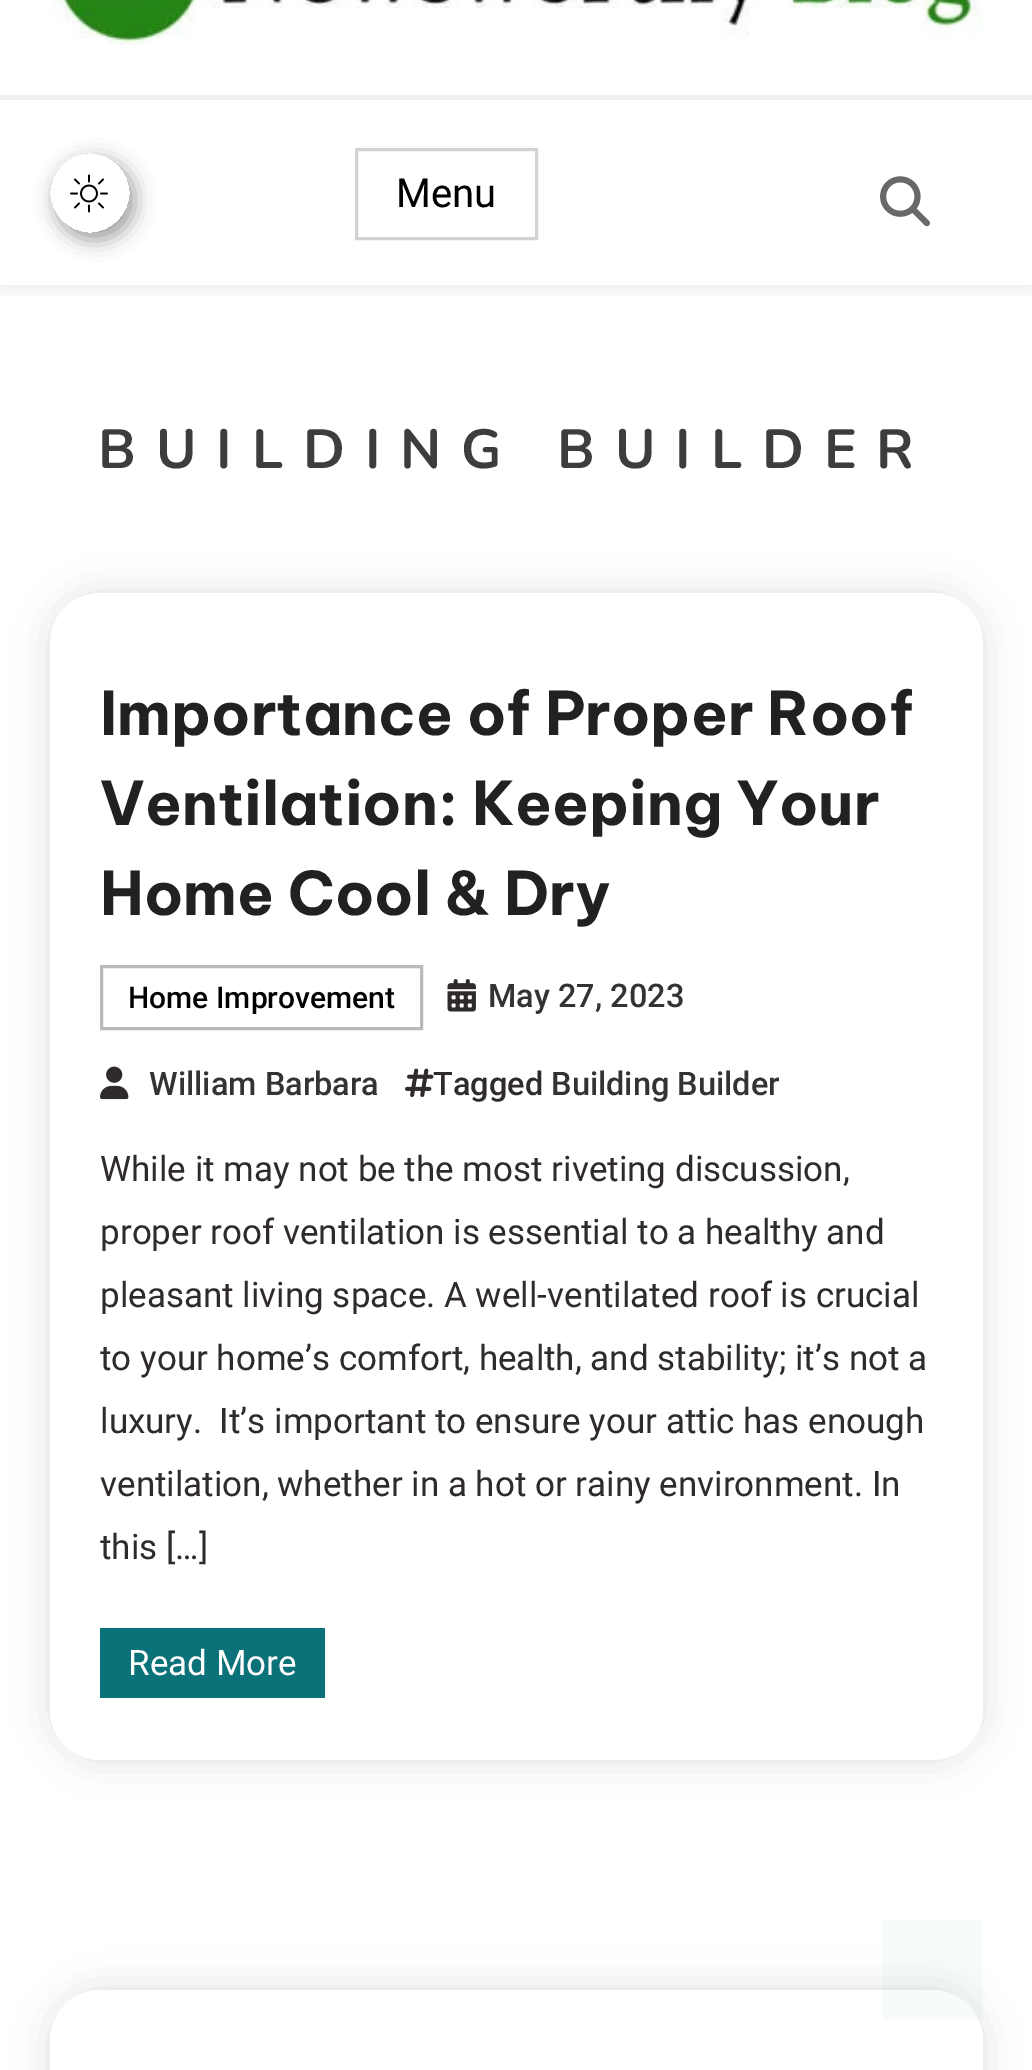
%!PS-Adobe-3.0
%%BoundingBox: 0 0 1032 2070
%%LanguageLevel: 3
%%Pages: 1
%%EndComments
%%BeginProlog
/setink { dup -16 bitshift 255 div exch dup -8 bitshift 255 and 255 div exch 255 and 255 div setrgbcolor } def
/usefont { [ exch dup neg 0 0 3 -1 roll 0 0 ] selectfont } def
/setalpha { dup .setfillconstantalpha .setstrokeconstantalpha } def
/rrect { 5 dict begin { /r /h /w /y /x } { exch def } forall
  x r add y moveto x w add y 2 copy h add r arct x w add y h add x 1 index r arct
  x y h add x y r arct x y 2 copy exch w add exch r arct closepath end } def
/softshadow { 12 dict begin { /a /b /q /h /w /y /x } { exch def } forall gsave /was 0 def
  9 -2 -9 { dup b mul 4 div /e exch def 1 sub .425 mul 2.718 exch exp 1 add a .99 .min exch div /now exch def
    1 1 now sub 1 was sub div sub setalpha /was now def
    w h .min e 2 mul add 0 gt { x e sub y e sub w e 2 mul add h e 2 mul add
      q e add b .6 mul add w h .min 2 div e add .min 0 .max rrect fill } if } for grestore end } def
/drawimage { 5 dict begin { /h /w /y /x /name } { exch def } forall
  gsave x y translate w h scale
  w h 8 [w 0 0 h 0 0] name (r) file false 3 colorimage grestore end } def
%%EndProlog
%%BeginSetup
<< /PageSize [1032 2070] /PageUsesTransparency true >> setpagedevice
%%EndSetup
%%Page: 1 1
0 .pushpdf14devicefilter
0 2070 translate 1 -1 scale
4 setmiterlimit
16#FFFFFF setink
0 0 1032 2070 rectfill
gsave
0 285 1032 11 rectclip
16#000000 setink
0 -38 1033 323 0 12.5 0.1 softshadow
grestore
(img1.raw) 50 0 933 45 drawimage
16#EFEFEF setink
0 95 1032 5 rectfill
gsave
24 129 moveto 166 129 lineto 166 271 lineto 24 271 lineto closepath 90 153 moveto 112 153 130 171 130 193 curveto 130 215 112 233 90 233 curveto 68 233 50 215 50 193 curveto 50 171 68 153 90 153 curveto closepath eoclip newpath
16#000000 setink
55 160 80 80 40 10 0.37 softshadow
grestore
(img2.raw) 70 174 38 39 drawimage
16#D5D1D1 setink
3 setlinewidth
356.5 149.5 180 89 rectstroke
/Roboto-Regular 40 usefont
16#000000 setink
396 207 moveto (Menu) show
(img3.raw) 880 176 50 51 drawimage
/Nunito-Bold 55 usefont
16#3D3D3D setink
98 468 moveto 20 0 (BUILDING BUILDER) ashow
16#000000 setink
50 593 933 1167 50 19 0.13 softshadow
16#FFFFFF setink
50 593 933 1167 50 rrect fill
/BeVietnamPro-Bold 60 usefont
16#212121 setink
[
    [(Importance of Proper Roof) 100 735]
    [(Ventilation: Keeping Your) 100 825]
    [(Home Cool & Dry) 100 915]
] { aload pop moveto show } forall
16#BDB9B9 setink
101.5 966.5 320 62 rectstroke
/Roboto-Medium 30 usefont
16#000000 setink
128 1008 moveto (Home Improvement) show
(img4.raw) 447 979 29 33 drawimage
/Roboto-Medium 32.5 usefont
16#333333 setink
488 1007 moveto (May 27, 2023) show
(img5.raw) 100 1066 29 34 drawimage
149 1095 moveto (William Barbara) show
(img6.raw) 405 1068 29 29 drawimage
16#302B2B setink
433 1095 moveto (Tagged) show
16#333333 setink
551 1095 moveto (Building Builder) show
/Roboto-Regular 35 usefont
16#302B2B setink
[
    [(While it may not be the most riveting discussion,) 100 1181]
    [(proper roof ventilation is essential to a healthy and) 100 1244]
    [(pleasant living space. A well-ventilated roof is crucial) 100 1307]
    [(to your home’s comfort, health, and stability; it’s not a) 100 1370]
    [(luxury.  It’s important to ensure your attic has enough) 100 1433]
    [(ventilation, whether in a hot or rainy environment. In) 100 1496]
    [(this […]) 100 1559]
] { aload pop moveto show } forall
16#0B7279 setink
100 1628 225 70 rectfill
16#FFFFFF setink
128 1675 moveto (Read More) show
16#000000 setink
50 1990 933 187 50 19 0.13 softshadow
16#FFFFFF setink
50 1990 933 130 50 rrect fill
0.03 setalpha
16#0B7378 setink
883 1920 100 100 rectfill
.poppdf14devicefilter showpage
%%EOF
